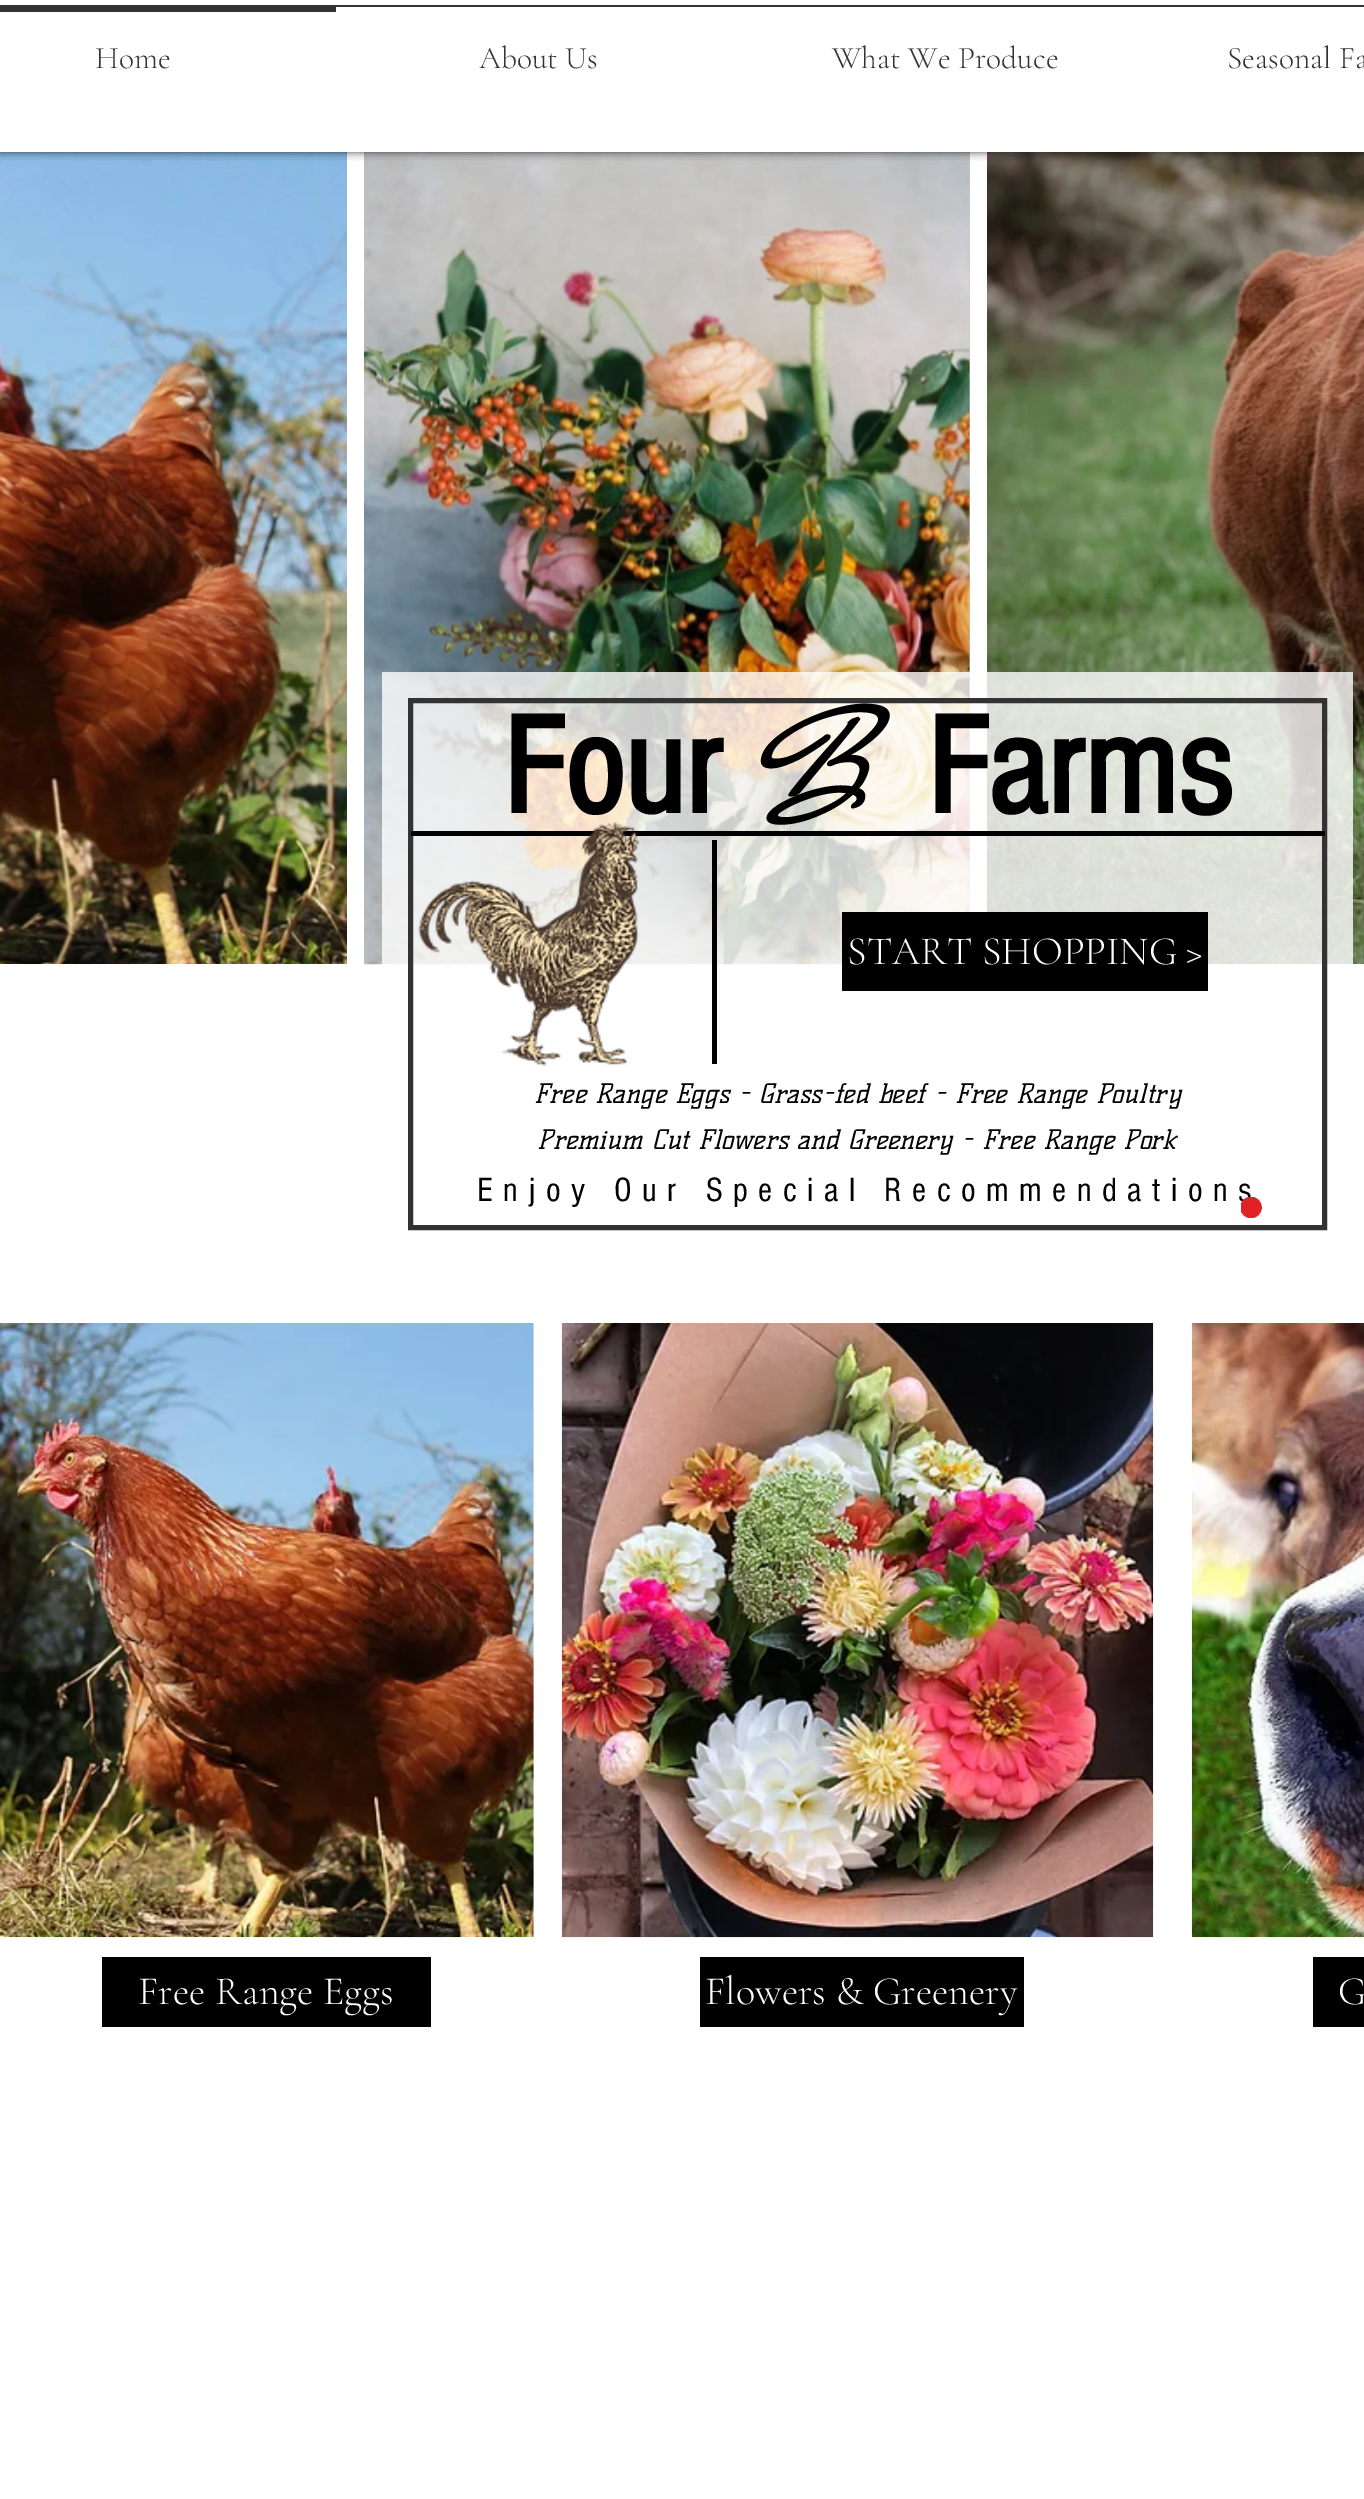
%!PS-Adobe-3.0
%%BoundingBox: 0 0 1364 2499
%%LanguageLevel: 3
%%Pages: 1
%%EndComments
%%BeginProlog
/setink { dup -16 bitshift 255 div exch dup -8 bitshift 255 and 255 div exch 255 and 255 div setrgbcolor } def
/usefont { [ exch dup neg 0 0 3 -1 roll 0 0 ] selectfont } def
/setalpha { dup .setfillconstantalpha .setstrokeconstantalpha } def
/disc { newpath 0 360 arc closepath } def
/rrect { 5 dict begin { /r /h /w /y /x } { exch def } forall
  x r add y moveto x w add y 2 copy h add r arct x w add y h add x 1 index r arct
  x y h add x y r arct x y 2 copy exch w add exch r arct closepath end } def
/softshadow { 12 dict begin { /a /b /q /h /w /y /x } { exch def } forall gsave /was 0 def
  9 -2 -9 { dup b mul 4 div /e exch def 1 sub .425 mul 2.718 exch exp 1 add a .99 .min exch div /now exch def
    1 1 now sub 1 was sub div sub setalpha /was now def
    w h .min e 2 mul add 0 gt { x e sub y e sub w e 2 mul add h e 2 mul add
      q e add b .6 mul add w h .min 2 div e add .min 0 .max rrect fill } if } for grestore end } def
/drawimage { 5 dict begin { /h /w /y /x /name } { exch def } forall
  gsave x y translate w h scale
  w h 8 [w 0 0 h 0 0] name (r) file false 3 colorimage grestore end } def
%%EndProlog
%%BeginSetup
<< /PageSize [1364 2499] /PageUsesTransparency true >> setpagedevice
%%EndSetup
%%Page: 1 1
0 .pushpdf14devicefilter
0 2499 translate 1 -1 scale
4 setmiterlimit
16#FFFFFF setink
0 0 1364 2499 rectfill
(img1.raw) 0 152 347 812 drawimage
16#C7C7C7 setink
364 152 606 760 rectfill
(img2.raw) 364 152 606 813 drawimage
(img3.raw) 987 152 377 812 drawimage
gsave
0 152 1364 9 rectclip
16#000000 setink
0 0 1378 152 0 4.5 0.7 softshadow
grestore
16#333333 setink
0 5 336 7 rectfill
/CormorantGaramond-Light 31.5 usefont
95 68 moveto (Home) show
336 5 1028 2 rectfill
[
    [(About Us) 479 68]
    [(What We Produce) 832 68]
    [(Seasonal Fa) 1227 68]
] { aload pop moveto show } forall
0.8 setalpha
16#FFFFFF setink
382 672 971 293 rectfill
1 setalpha
16#333333 setink
5 setlinewidth
410.5 700.5 914 527 rectstroke
/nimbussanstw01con-Bold 143.5 usefont
16#000000 setink
504 813 moveto (Four) show
/MrDeHaviland-BoldItalic 143.5 usefont
756 813 moveto (B) show
/nimbussanstw01con-Bold 143.5 usefont
928 813 moveto (Farms) show
411 831 914 5 rectfill
(img4.raw) 418 822 222 245 drawimage
712 840 5 224 rectfill
842 912 366 79 rectfill
/CormorantGaramond-Light 40.25 usefont
16#FFFFFF setink
847 964 moveto (START SHOPPING >) show
/KellySlab-Italic 26.25 usefont
16#000000 setink
534 1103 moveto (Free Range Eggs - Grass-fed beef - Free Range Poultry) show
537 1149 moveto (Premium Cut Flowers and Greenery - Free Range Pork) show
/nimbussanstw01con-Regular 35 usefont
477 1201 moveto 10.5 0 (Enjoy Our Special Recommendations) ashow
(img5.raw) 0 1323 534 615 drawimage
(img6.raw) 561 1323 593 615 drawimage
(img7.raw) 1191 1323 173 615 drawimage
102 1957 329 70 rectfill
/CormorantGaramond-Light 40.25 usefont
16#FFFFFF setink
138 2004 moveto (Free Range Eggs) show
16#000000 setink
700 1957 324 70 rectfill
16#FFFFFF setink
705 2004 moveto (Flowers & Greenery) show
16#000000 setink
1313 1957 51 70 rectfill
16#FFFFFF setink
1338 2004 moveto (G) show
16#E12126 setink
1251 1207.5 9 disc fill
gsave
1241 1197 21 21 rectclip
3.5 setlinewidth
1251 1207.5 9 disc stroke
grestore
.poppdf14devicefilter showpage
%%EOF
